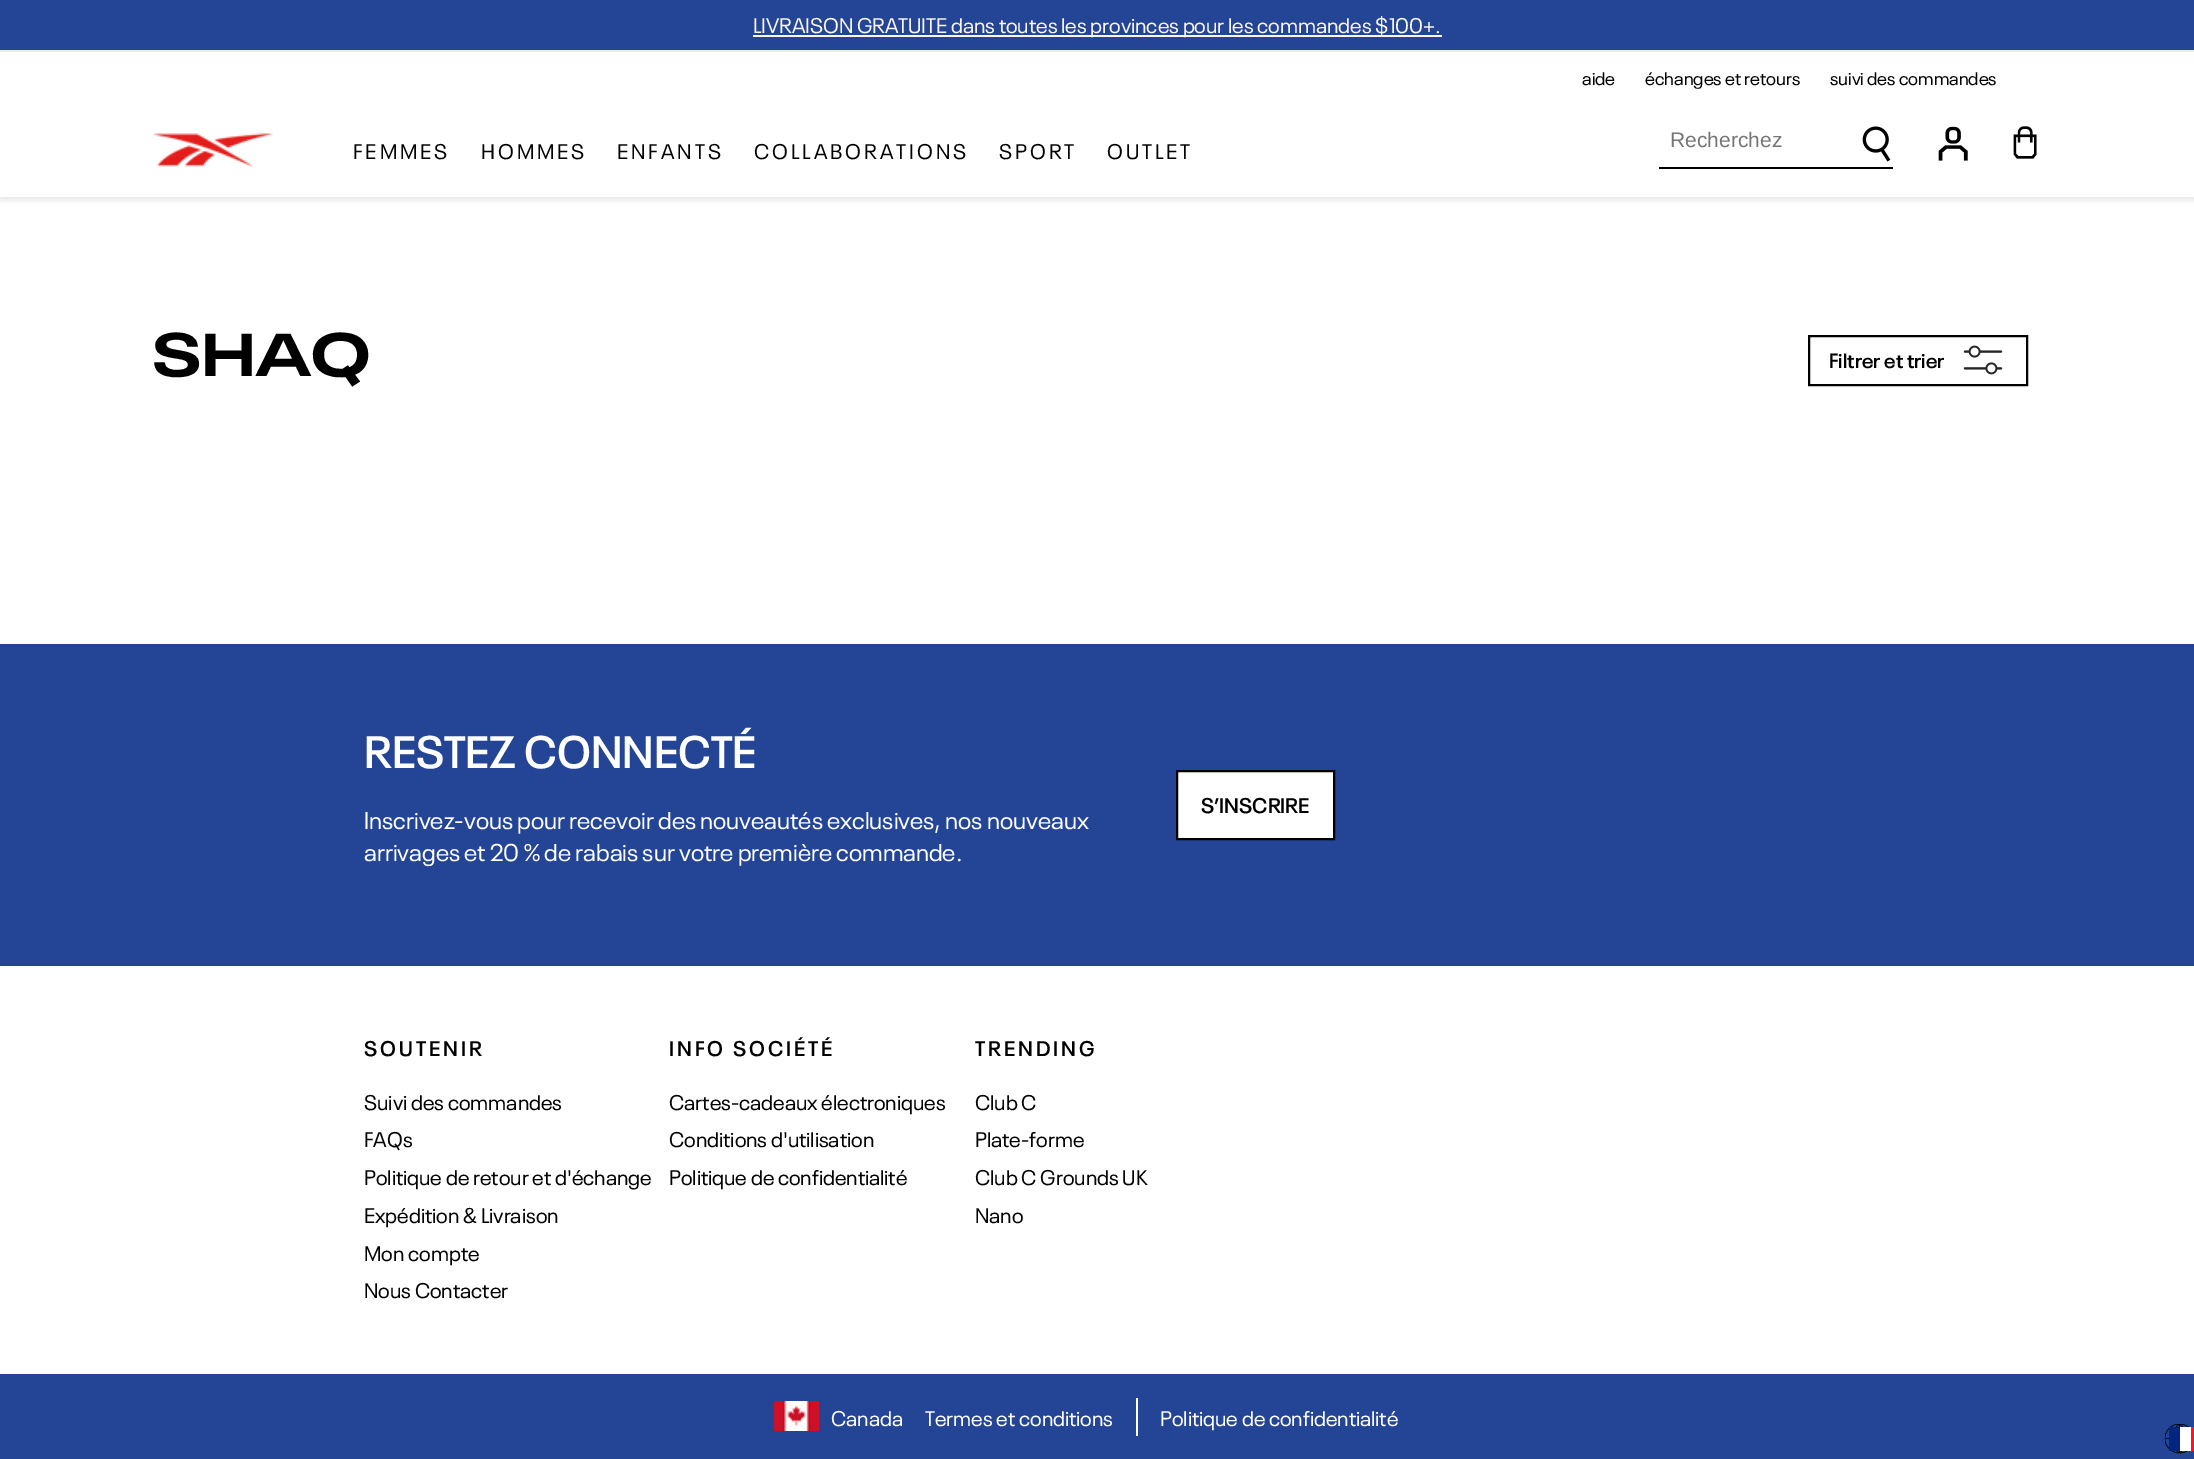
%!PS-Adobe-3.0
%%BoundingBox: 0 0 2194 1459
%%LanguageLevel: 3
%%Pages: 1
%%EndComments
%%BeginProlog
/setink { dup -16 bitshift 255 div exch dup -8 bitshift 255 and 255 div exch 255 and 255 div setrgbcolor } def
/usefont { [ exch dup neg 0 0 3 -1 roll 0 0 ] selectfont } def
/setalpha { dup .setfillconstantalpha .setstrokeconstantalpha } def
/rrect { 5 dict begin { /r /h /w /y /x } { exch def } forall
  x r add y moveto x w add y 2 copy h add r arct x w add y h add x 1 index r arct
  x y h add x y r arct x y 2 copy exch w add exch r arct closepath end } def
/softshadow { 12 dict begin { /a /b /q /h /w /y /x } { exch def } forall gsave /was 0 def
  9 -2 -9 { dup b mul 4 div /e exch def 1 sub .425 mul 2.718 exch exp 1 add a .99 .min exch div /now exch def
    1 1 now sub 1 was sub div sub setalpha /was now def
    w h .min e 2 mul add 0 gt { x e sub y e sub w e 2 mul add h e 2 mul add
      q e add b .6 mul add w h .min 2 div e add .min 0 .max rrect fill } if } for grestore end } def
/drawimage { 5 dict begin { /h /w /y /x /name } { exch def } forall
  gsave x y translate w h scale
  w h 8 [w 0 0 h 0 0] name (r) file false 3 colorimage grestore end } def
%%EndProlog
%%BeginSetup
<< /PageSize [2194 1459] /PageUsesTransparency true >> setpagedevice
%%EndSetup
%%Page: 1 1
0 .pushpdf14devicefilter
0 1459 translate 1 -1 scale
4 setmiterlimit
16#FFFFFF setink
0 0 2194 1459 rectfill
16#000000 setink
0 54 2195 146 0 3 0.1 softshadow
[
    [0 51 2194 146 16#FFFFFF]
] { aload pop setink rectfill } forall
0.08 setalpha
[
    [0 50 2194 2 16#000000]
] { aload pop setink rectfill } forall
1 setalpha
[
    [0 0 2194 50 16#244496]
    [753 35 689 2 16#FAF6E9]
] { aload pop setink rectfill } forall
/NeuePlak-Regular 21 usefont
753 33 moveto (LIVRAISON GRATUITE dans toutes les provinces pour les commandes $100+.) show
/NeuePlak-Regular 18 usefont
16#000000 setink
[
    [(aide) 1582 85]
    [(échanges et retours) 1645 85]
    [(suivi des commandes) 1830 85]
] { aload pop moveto show } forall
(img1.raw) 153 133 120 34 drawimage
/NeuePlak-Regular 21 usefont
353 159 moveto 3 0 (FEMMES) ashow
481 159 moveto 3 0 (HOMMES) ashow
617 159 moveto 3 0 (ENFANTS) ashow
754 159 moveto 3 0 (COLLABORATIONS) ashow
999 159 moveto 3 0 (SPORT) ashow
1107 159 moveto 3 0 (OUTLET) ashow
1659 167 234 2 rectfill
/LiberationSans-Regular 21 usefont
16#757575 setink
1670 147 moveto (Recherchez) show
(img2.raw) 1862 126 29 36 drawimage
(img3.raw) 1938 126 30 35 drawimage
(img4.raw) 2013 126 24 33 drawimage
/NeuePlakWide-Bold 60 usefont
16#000000 setink
152 376 moveto (SHAQ) show
2 setlinewidth
1809 336 218 49 rectstroke
/NeuePlak-SemiBold 20.5 usefont
1829 368 moveto (Filtrer et trier) show
(img5.raw) 1963 345 40 30 drawimage
16#244496 setink
0 644 2194 322 rectfill
/NeuePlak-SemiBold 45 usefont
16#FFFFFF setink
364 768 moveto (RESTEZ CONNECTÉ) show
/NeuePlak-Regular 24 usefont
364 829 moveto (Inscrivez-vous pour recevoir des nouveautés exclusives, nos nouveaux) show
364 861 moveto (arrivages et 20 % de rabais sur votre première commande.) show
1177 771 moveto 1334 771 lineto 1334 839 lineto 1177 839 lineto closepath gsave fill grestore
16#000000 setink
stroke
/NeuePlak-SemiBold 21 usefont
1201 813 moveto (S’INSCRIRE) show
364 1056 moveto 3 0 (SOUTENIR) ashow
/NeuePlak-Regular 21 usefont
[
    [(Suivi des commandes) 364 1110]
    [(FAQs) 364 1147]
    [(Politique de retour et d'échange) 364 1185]
    [(Expédition & Livraison) 364 1223]
    [(Mon compte) 364 1261]
    [(Nous Contacter) 364 1298]
] { aload pop moveto show } forall
/NeuePlak-SemiBold 21 usefont
669 1056 moveto 3 0 (INFO SOCIÉTÉ) ashow
/NeuePlak-Regular 21 usefont
[
    [(Cartes-cadeaux électroniques) 669 1110]
    [(Conditions d'utilisation) 669 1147]
    [(Politique de confidentialité) 669 1185]
] { aload pop moveto show } forall
/NeuePlak-SemiBold 21 usefont
975 1056 moveto 3 0 (TRENDING) ashow
/NeuePlak-Regular 21 usefont
[
    [(Club C) 975 1110]
    [(Plate-forme) 975 1147]
    [(Club C Grounds UK) 975 1185]
    [(Nano) 975 1223]
] { aload pop moveto show } forall
16#244496 setink
0 1374 2194 85 rectfill
(img6.raw) 774 1401 45 30 drawimage
16#FFFFFF setink
831 1426 moveto (Canada) show
1136 1398 2 38 rectfill
925 1426 moveto (Termes et conditions) show
1160 1426 moveto (Politique de confidentialité) show
(img7.raw) 2165 1424 24 30 drawimage
[
    [2180 1427 11 24 16#FFFFFF]
    [2169 1427 11 24 16#00267F]
    [2191 1427 3 24 16#F31830]
] { aload pop setink rectfill } forall
.poppdf14devicefilter showpage
%%EOF
